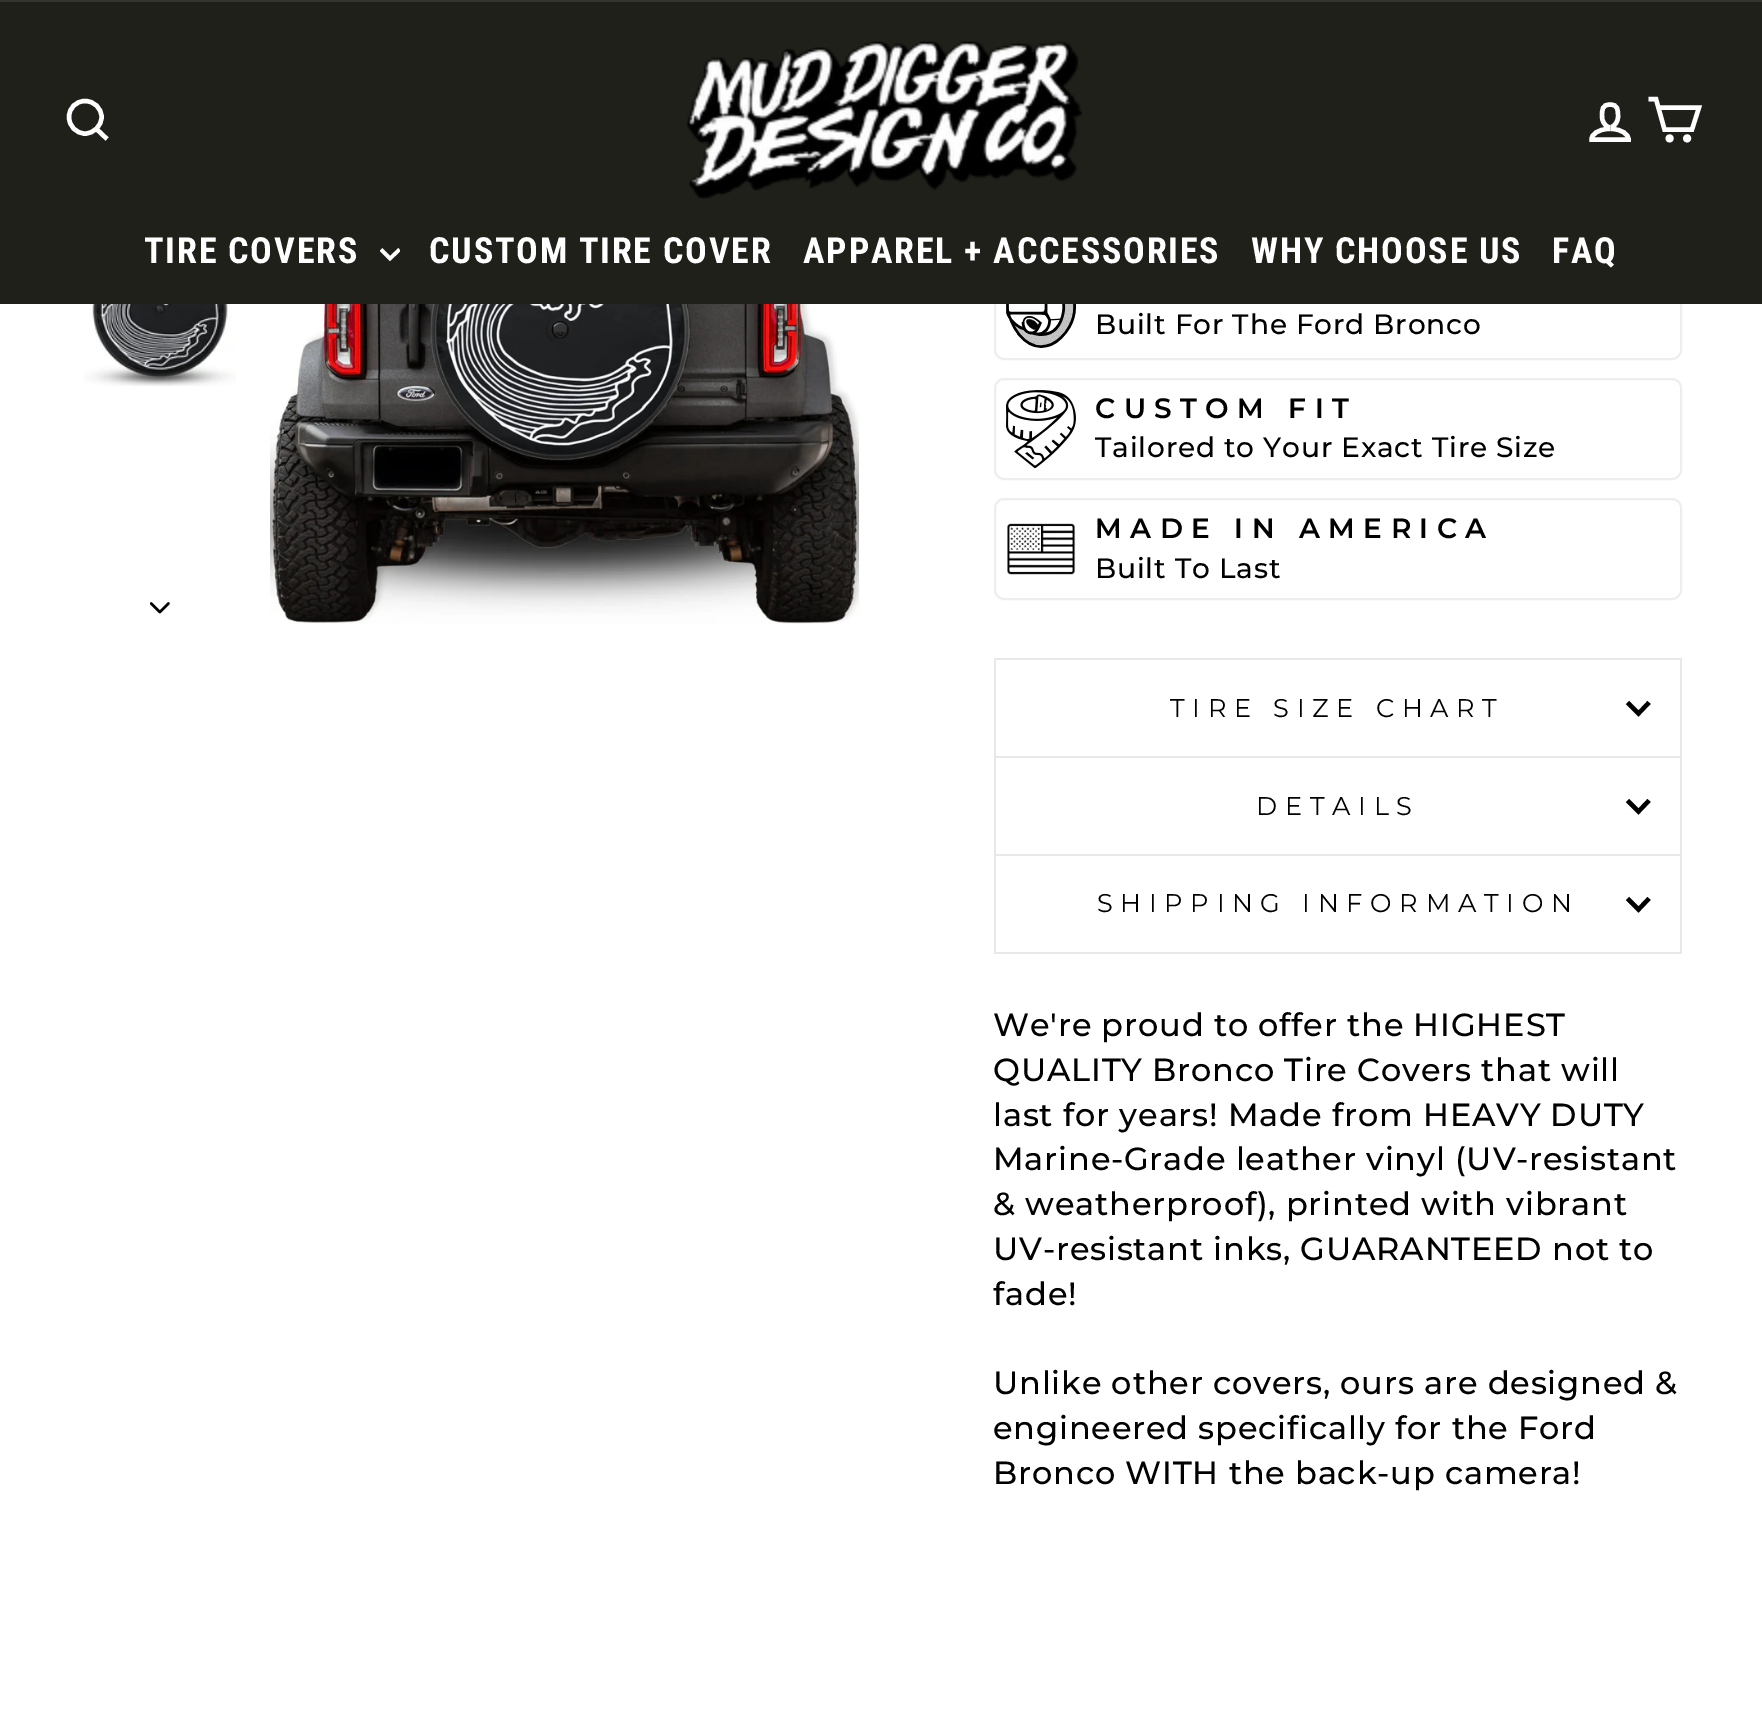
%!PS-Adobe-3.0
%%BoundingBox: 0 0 1762 1719
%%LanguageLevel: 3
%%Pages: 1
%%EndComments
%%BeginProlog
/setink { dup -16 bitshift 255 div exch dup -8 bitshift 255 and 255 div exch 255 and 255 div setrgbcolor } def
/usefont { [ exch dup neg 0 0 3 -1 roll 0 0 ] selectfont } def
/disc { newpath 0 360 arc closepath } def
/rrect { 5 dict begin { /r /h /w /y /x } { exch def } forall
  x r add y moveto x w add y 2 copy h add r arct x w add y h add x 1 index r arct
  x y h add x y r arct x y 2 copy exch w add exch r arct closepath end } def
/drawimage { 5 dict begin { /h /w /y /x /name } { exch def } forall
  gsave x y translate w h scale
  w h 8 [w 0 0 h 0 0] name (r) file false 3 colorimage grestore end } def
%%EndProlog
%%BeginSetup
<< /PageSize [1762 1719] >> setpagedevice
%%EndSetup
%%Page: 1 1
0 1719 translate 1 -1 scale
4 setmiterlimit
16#FFFFFF setink
0 0 1762 1719 rectfill
16#EEEEEE setink
2 setlinewidth
995 253 686 106 9 rrect stroke
16#1E2019 setink
0 2 1762 302 rectfill
16#353630 setink
0 0 1762 2 rectfill
16#FFFFFF setink
4.4 setlinewidth
101.5 117 moveto 101.5 126 94 133.5 85 133.5 curveto 76 133.5 69 126 69 117 curveto 69 108 76 101 85 101 curveto 94 101 101.5 108 101.5 117 curveto closepath 107 139 moveto 96.5 129 lineto stroke
(img1.raw) 686 41 396 158 drawimage
1612.5 129 moveto 1612.5 126.5 lineto 1615.5 125 1618 121 1618 116.5 curveto 1618 110 1618 104.5 1610 104.5 curveto 1602 104.5 1602 110 1602 116.5 curveto 1602 121 1604.5 125 1607.5 126.5 curveto 1607.5 129 lineto 1598.5 129.5 1591.5 134 1591.5 139.5 curveto 1628.5 139.5 lineto 1628.5 134 1621.5 129.5 1612.5 129 curveto closepath stroke
1658 107.5 moveto 1699 107.5 lineto 1692 129.5 lineto 1664.5 129.5 lineto 1656 99 lineto 1648.5 99 lineto stroke
1669.6 138.4 1.8 disc gsave fill grestore
stroke
1687.1 138.4 1.8 disc gsave fill grestore
stroke
/RobotoCondensed-Bold 36 usefont
144 263 moveto 1.8 0 (TIRE COVERS) ashow
gsave
380 244 20 20 rectclip
3.6 setlinewidth
381 249.5 moveto 390 258.5 lineto 399.5 249.5 lineto stroke
grestore
429 263 moveto 1.8 0 (CUSTOM TIRE COVER) ashow
803 263 moveto 1.8 0 (APPAREL + ACCESSORIES) ashow
1251 263 moveto 1.8 0 (WHY CHOOSE US) ashow
1552 263 moveto 1.8 0 (FAQ) ashow
(img2.raw) 84 304 152 82 drawimage
(img3.raw) 150 602 20 12 drawimage
(img4.raw) 270 304 590 320 drawimage
(img5.raw) 859 423 1 177 drawimage
(img6.raw) 1006 304 70 44 drawimage
/Montserrat-Medium 28 usefont
16#000000 setink
1095 334 moveto 0.8 0 (Built For The Ford Bronco) ashow
16#EEEEEE setink
2 setlinewidth
995 379 686 100 9 rrect stroke
(img7.raw) 1006 390 70 78 drawimage
/Montserrat-SemiBold 28 usefont
16#000000 setink
1095 418 moveto 8.4 0 (CUSTOM FIT) ashow
/Montserrat-Medium 28 usefont
1095 457 moveto 0.8 0 (Tailored to Your Exact Tire Size) ashow
16#EEEEEE setink
995 499 686 100 9 rrect stroke
(img8.raw) 1007 523 69 52 drawimage
/Montserrat-SemiBold 28 usefont
16#000000 setink
1095 538 moveto 8.4 0 (MADE IN AMERICA) ashow
/Montserrat-Medium 28 usefont
1095 578 moveto 0.8 0 (Built To Last) ashow
[
    [994 756 688 2 16#E8E8E8]
    [994 658 688 2 16#E8E8E8]
    [1680 658 2 98 16#E8E8E8]
    [994 658 2 98 16#E8E8E8]
] { aload pop setink rectfill } forall
/Montserrat-Thin 25.6 usefont
16#000000 setink
1170 717 moveto 7.7 0 (TIRE SIZE CHART) ashow
4.3 setlinewidth
1627.5 702.5 moveto 1638.5 713.5 lineto 1649 702.5 lineto stroke
[
    [994 854 688 2 16#E8E8E8]
    [1680 758 2 96 16#E8E8E8]
    [994 758 2 96 16#E8E8E8]
] { aload pop setink rectfill } forall
16#000000 setink
1256 815 moveto 7.7 0 (DETAILS) ashow
1627.5 800.5 moveto 1638.5 811.5 lineto 1649 800.5 lineto stroke
[
    [994 952 688 2 16#E8E8E8]
    [1680 856 2 96 16#E8E8E8]
    [994 856 2 96 16#E8E8E8]
] { aload pop setink rectfill } forall
16#000000 setink
1097 912 moveto 7.7 0 (SHIPPING INFORMATION) ashow
1627.5 898.5 moveto 1638.5 909.5 lineto 1649 898.5 lineto stroke
/Montserrat-Medium 32 usefont
993 1036 moveto 0.8 0 (We're proud to offer the HIGHEST) ashow
993 1081 moveto 0.8 0 (QUALITY Bronco Tire Covers that will) ashow
993 1126 moveto 0.8 0 (last for years! Made from HEAVY DUTY) ashow
993 1170 moveto 0.8 0 (Marine-Grade leather vinyl \(UV-resistant) ashow
993 1215 moveto 0.8 0 (& weatherproof\), printed with vibrant) ashow
993 1260 moveto 0.8 0 (UV-resistant inks, GUARANTEED not to) ashow
993 1305 moveto 0.8 0 (fade!) ashow
993 1394 moveto 0.8 0 (Unlike other covers, ours are designed &) ashow
993 1439 moveto 0.8 0 (engineered specifically for the Ford) ashow
993 1484 moveto 0.8 0 (Bronco WITH the back-up camera!) ashow
showpage
%%EOF
